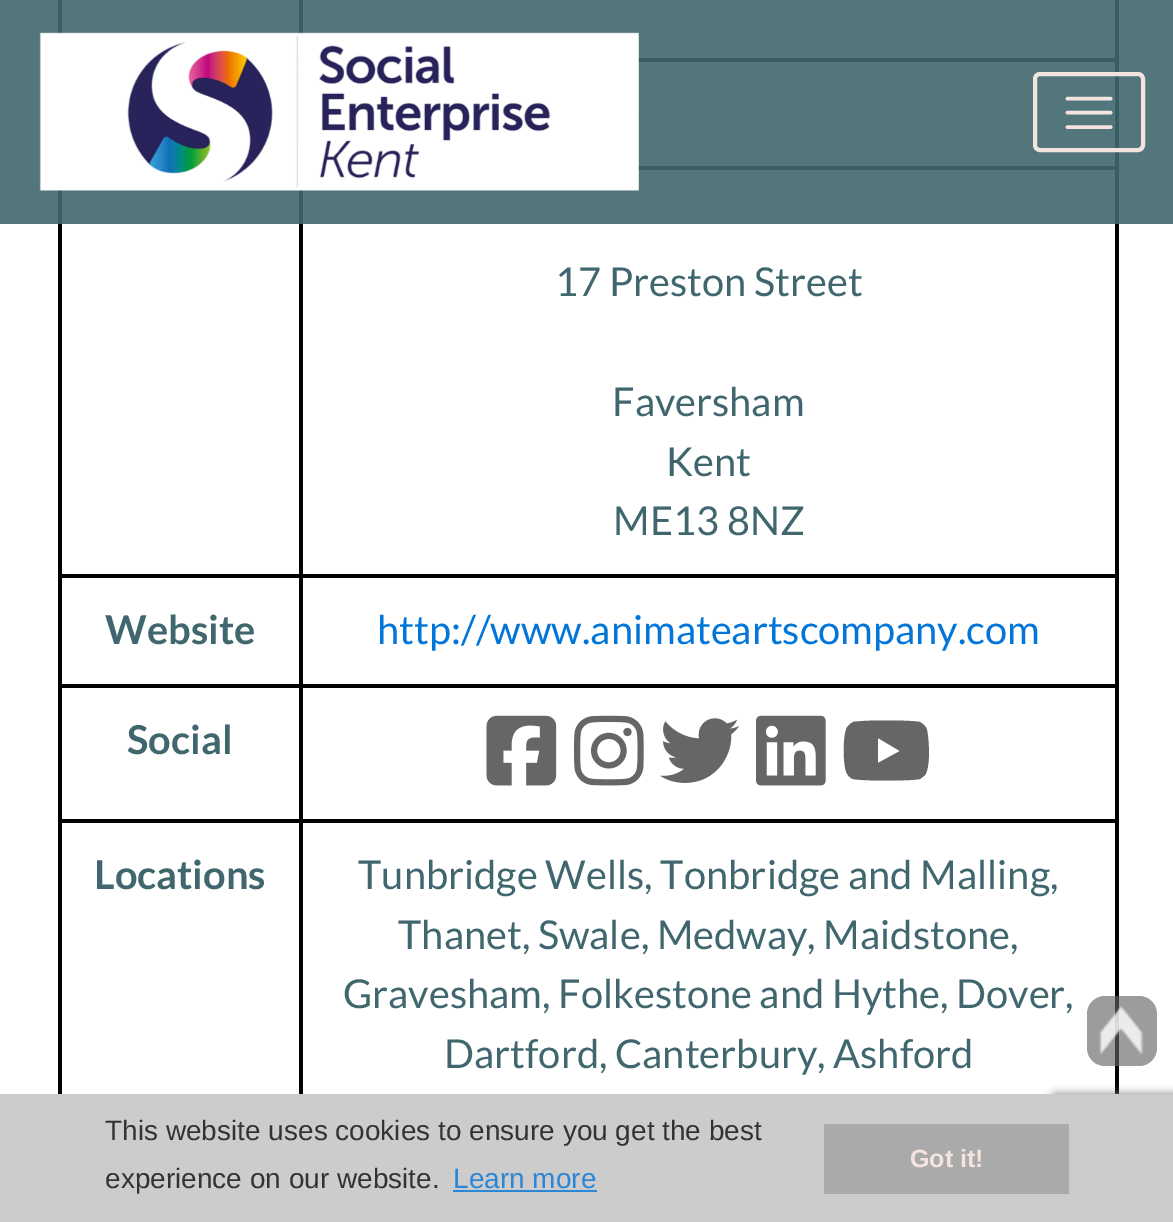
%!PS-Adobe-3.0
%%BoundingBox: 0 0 1173 1222
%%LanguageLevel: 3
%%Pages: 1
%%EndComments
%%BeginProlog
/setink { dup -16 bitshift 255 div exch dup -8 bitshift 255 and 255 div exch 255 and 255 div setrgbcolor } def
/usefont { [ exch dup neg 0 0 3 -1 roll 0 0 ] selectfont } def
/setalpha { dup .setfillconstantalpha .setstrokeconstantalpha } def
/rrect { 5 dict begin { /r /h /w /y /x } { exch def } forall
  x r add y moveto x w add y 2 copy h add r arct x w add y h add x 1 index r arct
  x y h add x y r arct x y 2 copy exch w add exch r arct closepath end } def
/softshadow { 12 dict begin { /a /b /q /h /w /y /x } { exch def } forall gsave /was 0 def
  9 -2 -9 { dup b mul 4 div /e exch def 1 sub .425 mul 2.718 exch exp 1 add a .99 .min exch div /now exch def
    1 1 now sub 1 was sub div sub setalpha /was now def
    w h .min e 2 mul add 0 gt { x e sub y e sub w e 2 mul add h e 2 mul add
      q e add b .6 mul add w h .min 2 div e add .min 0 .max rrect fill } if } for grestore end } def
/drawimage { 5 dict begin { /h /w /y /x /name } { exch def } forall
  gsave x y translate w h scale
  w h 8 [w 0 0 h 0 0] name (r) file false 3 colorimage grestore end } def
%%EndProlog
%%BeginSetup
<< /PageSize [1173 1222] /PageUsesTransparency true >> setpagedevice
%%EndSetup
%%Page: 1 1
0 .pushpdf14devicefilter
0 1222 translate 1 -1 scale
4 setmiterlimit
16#FFFFFF setink
0 0 1173 1222 rectfill
[
    [1115 0 4 1094 16#000000]
    [58 0 4 1094 16#000000]
    [299 0 4 34 16#000000]
    [638 58 480 4 16#000000]
    [638 166 480 4 16#000000]
    [299 574 819 4 16#000000]
    [299 684 819 4 16#000000]
    [299 819 819 4 16#000000]
    [299 819 4 275 16#000000]
    [58 819 245 4 16#000000]
    [299 684 4 139 16#000000]
    [58 684 245 4 16#000000]
    [299 574 4 114 16#000000]
    [58 574 245 4 16#000000]
    [299 190 4 388 16#000000]
] { aload pop setink rectfill } forall
0.9 setalpha
[
    [0 0 1173 224 16#40676E]
] { aload pop setink rectfill } forall
1 setalpha
(img1.raw) 39 32 600 159 drawimage
16#F3E4DF setink
4 setlinewidth
1035 74 108 76 5 rrect stroke
3.6 setlinewidth
1 setlinecap
1067.5 98.5 moveto 1110.5 98.5 lineto 1067.5 112.5 moveto 1110.5 112.5 lineto 1067.5 127 moveto 1110.5 127 lineto stroke
0.64 setalpha
16#646464 setink
1087 996 70 70 18 rrect fill
1 setalpha
(img2.raw) 1099 1006 45 49 drawimage
/Lato-Regular 39.8 usefont
16#40676E setink
[
    [(17 Preston Street) 555 296]
    [(Faversham) 612 416]
    [(Kent) 666 476]
    [(ME13 8NZ) 613 535]
] { aload pop moveto show } forall
/Lato-Bold 39.8 usefont
105 644 moveto (Website) show
/Lato-Regular 39.8 usefont
16#0275D8 setink
377 644 moveto (http://www.animateartscompany.com) show
/Lato-Bold 39.8 usefont
16#40676E setink
127 754 moveto (Social) show
(img3.raw) 486 715 71 71 drawimage
(img4.raw) 574 715 70 71 drawimage
(img5.raw) 660 718 80 65 drawimage
(img6.raw) 756 715 70 71 drawimage
16#666666 setink
927 730 moveto 926 726 923 724 920 722 curveto 911 720 862 720 853 722 curveto 850 724 lineto 848 726 846 728 846 730 curveto 843 738 843 763 846 771 curveto 847 775 850 778 853 779 curveto 862 781 911 781 920 779 curveto 924 776 lineto 931 770 929 739 927 730 curveto closepath 878 763 moveto 878 738 lineto 878 763 lineto 878 738 lineto 900 751 lineto closepath fill
16#40676E setink
94 889 moveto (Locations) show
/Lato-Regular 39.8 usefont
[
    [(Tunbridge Wells, Tonbridge and Malling,) 358 889]
    [(Thanet, Swale, Medway, Maidstone,) 398 949]
    [(Gravesham, Folkestone and Hythe, Dover,) 343 1008]
    [(Dartford, Canterbury, Ashford) 444 1068]
] { aload pop moveto show } forall
16#808080 setink
1052 1094 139 105 4 4.5 1 softshadow
16#CCCCCC setink
0 1094 1173 128 rectfill
/LiberationSans-Regular 28 usefont
16#333333 setink
105 1140 moveto (This website uses cookies to ensure you get the best) show
105 1188 moveto (experience on our website.) show
16#2A86D6 setink
453 1188 moveto (Learn more) show
453 1190 144 2 rectfill
16#AAAAAA setink
824 1124 245 70 rectfill
/LiberationSans-Bold 25 usefont
16#F3E4DF setink
910 1167 moveto (Got it!) show
.poppdf14devicefilter showpage
%%EOF
